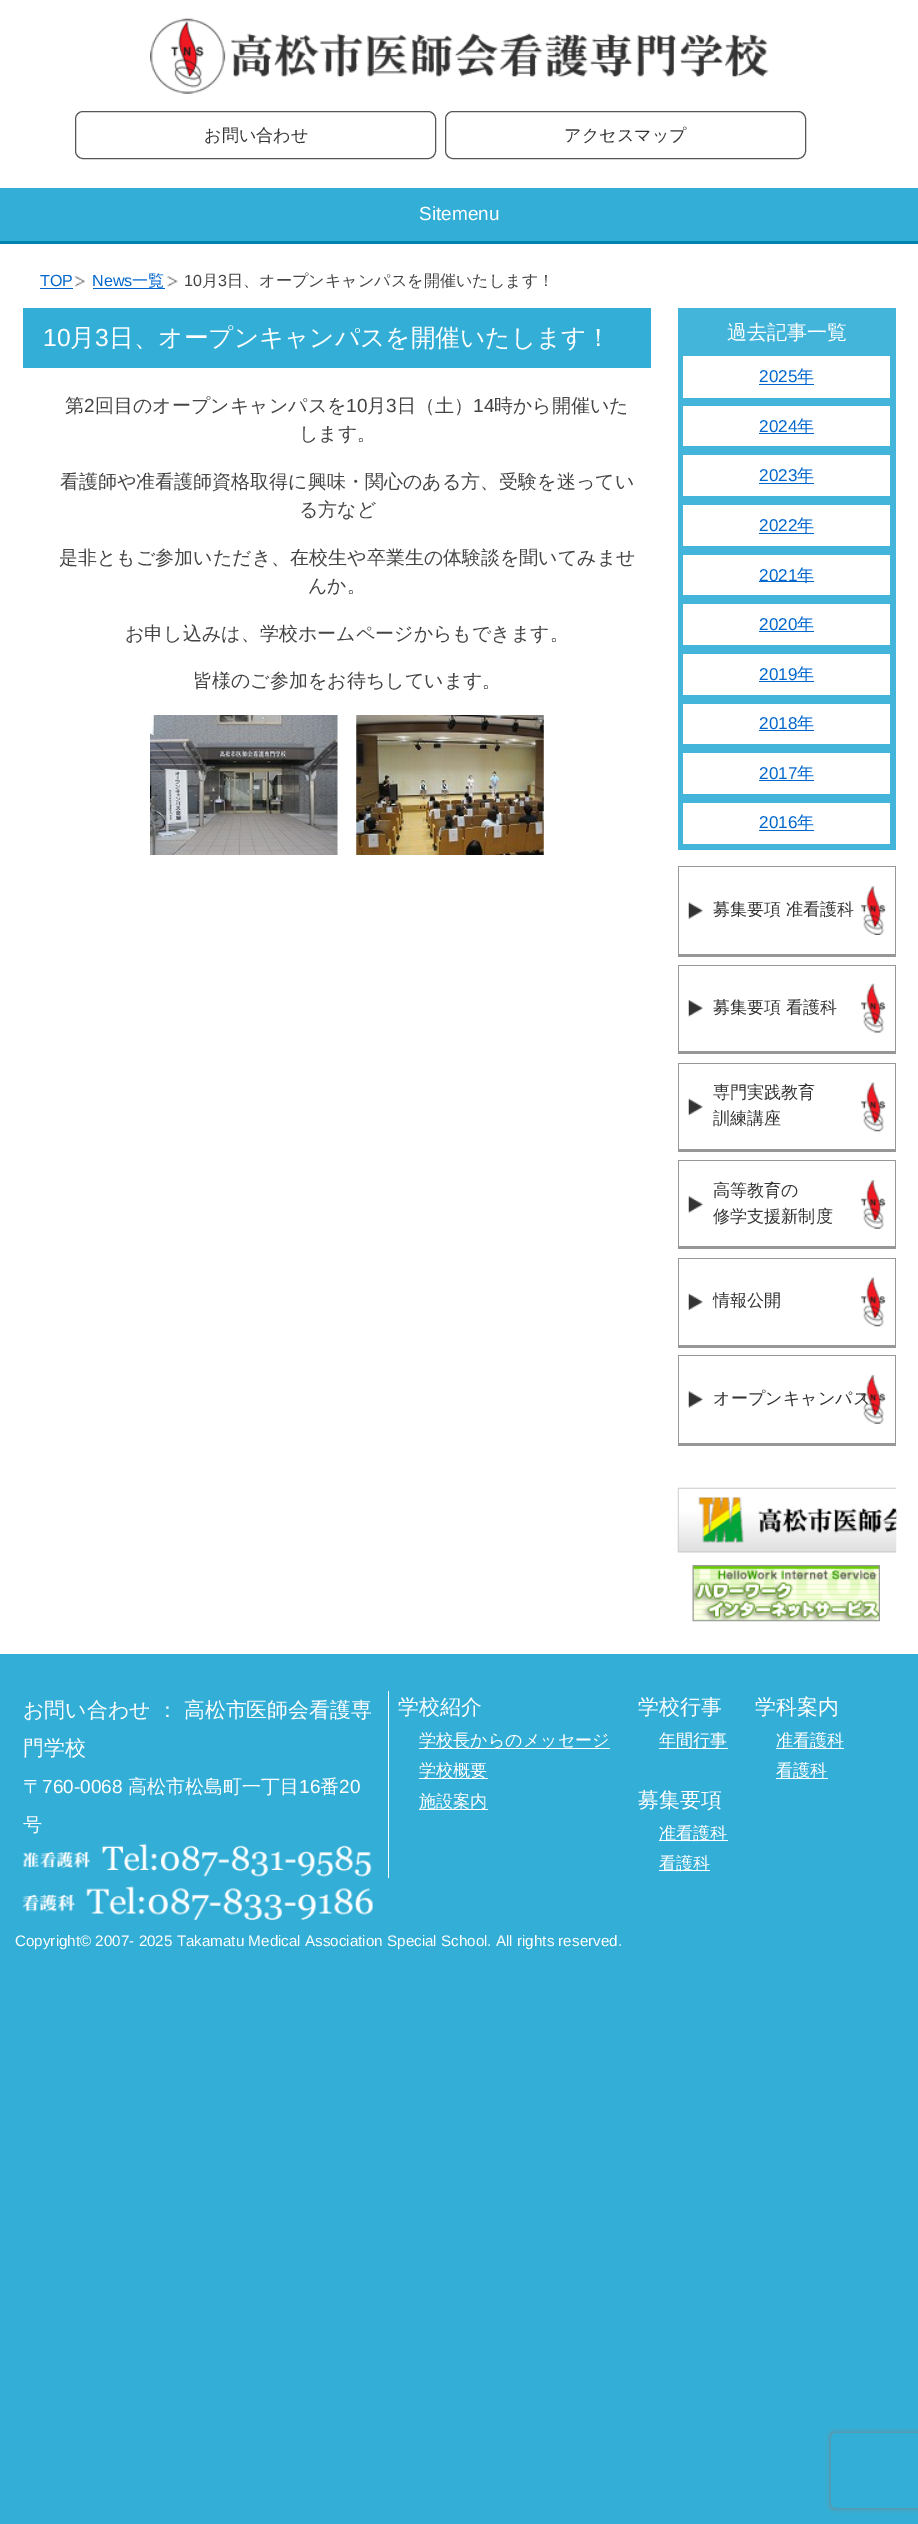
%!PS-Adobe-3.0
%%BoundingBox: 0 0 918 2524
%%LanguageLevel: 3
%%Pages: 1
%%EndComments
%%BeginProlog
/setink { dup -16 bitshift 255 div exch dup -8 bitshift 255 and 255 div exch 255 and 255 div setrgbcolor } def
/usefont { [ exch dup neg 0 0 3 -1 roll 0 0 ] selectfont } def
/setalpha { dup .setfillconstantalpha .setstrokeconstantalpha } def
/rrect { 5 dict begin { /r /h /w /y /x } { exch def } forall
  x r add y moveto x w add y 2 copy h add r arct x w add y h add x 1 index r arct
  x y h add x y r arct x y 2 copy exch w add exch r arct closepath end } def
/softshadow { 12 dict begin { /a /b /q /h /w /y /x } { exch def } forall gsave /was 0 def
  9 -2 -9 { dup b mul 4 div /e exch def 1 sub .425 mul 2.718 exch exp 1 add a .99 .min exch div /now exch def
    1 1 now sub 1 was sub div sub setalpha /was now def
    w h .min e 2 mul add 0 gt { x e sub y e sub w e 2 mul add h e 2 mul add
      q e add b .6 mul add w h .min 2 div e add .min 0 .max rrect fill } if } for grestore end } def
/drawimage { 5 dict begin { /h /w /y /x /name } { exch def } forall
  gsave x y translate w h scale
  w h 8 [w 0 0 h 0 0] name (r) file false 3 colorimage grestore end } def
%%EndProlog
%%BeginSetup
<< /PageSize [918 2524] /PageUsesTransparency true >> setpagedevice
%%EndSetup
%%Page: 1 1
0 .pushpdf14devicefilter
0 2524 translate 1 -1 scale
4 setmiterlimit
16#33AFD7 setink
0 0 918 2524 rectfill
16#FFFFFF setink
0 0 918 1654 rectfill
(img1.raw) 150 18 619 76 drawimage
16#555555 setink
75.5 111.5 360 47 7.5 rrect stroke
/WenQuanYiZenHei-Medium 17.1 usefont
16#333333 setink
204 141 moveto (お問い合わせ) show
16#555555 setink
445.5 111.5 360 47 7.5 rrect stroke
16#333333 setink
564 141 moveto (アクセスマップ) show
16#33AFD7 setink
0 188 918 53 rectfill
16#0083AE setink
0 241 918 3 rectfill
/LiberationSans-Regular 19 usefont
16#FFFFFF setink
419 220 moveto (Sitemenu) show
/LiberationSans-Regular 16.1 usefont
16#0066CC setink
40 286 moveto (TOP) show
40 288 33 1 rectfill
(img2.raw) 74 276 12 11 drawimage
92 286 moveto (News) show
93 288 72 1 rectfill
/WenQuanYiZenHei-Medium 16.1 usefont
132 286 moveto (一覧) show
(img3.raw) 167 276 11 11 drawimage
/LiberationSans-Regular 16.1 usefont
16#444444 setink
184 286 moveto (10) show
/WenQuanYiZenHei-Medium 16.1 usefont
202 286 moveto (月) show
/LiberationSans-Regular 16.1 usefont
218 286 moveto (3) show
/WenQuanYiZenHei-Medium 16.1 usefont
227 286 moveto (日、オープンキャンパスを開催いたします！) show
16#33AFD7 setink
23 308 628 60 rectfill
/LiberationSans-Regular 24.7 usefont
16#FFFFFF setink
43 346 moveto (10) show
/WenQuanYiZenHei-Medium 24.7 usefont
70 346 moveto (月) show
/LiberationSans-Regular 24.7 usefont
95 346 moveto (3) show
/WenQuanYiZenHei-Medium 24.7 usefont
109 346 moveto (日、オープンキャンパスを開催いたします！) show
/WenQuanYiZenHei-Medium 19 usefont
16#444444 setink
65 412 moveto (第) show
/LiberationSans-Regular 19 usefont
84 412 moveto (2) show
/WenQuanYiZenHei-Medium 19 usefont
95 412 moveto (回目のオープンキャンパスを) show
/LiberationSans-Regular 19 usefont
346 412 moveto (10) show
/WenQuanYiZenHei-Medium 19 usefont
367 412 moveto (月) show
/LiberationSans-Regular 19 usefont
386 412 moveto (3) show
/WenQuanYiZenHei-Medium 19 usefont
397 412 moveto (日（土）) show
/LiberationSans-Regular 19 usefont
473 412 moveto (14) show
/WenQuanYiZenHei-Medium 19 usefont
[
    [(時から開催いた) 494 412]
    [(します。) 299 440]
    [(看護師や准看護師資格取得に興味・関心のある方、受験を迷ってい) 60 488]
    [(る方など) 299 516]
    [(是非ともご参加いただき、在校生や卒業生の体験談を聞いてみませ) 59 564]
    [(んか。) 308 592]
    [(お申し込みは、学校ホームページからもできます。) 125 640]
    [(皆様のご参加をお待ちしています。) 193 687]
] { aload pop moveto show } forall
(img4.raw) 150 715 188 140 drawimage
(img5.raw) 356 715 188 140 drawimage
16#43B5DA setink
678 308 218 542 rectfill
/WenQuanYiZenHei-Medium 20 usefont
16#FFFFFF setink
727 339 moveto (過去記事一覧) show
683 356 207 42 rectfill
/LiberationSans-Regular 17.1 usefont
16#0066CC setink
759 382 moveto (2025) show
759 384 55 1 rectfill
/WenQuanYiZenHei-Medium 17.1 usefont
797 382 moveto (年) show
16#FFFFFF setink
683 406 207 40 rectfill
/LiberationSans-Regular 17.1 usefont
16#0066CC setink
759 432 moveto (2024) show
759 433 55 1 rectfill
/WenQuanYiZenHei-Medium 17.1 usefont
797 432 moveto (年) show
16#FFFFFF setink
683 455 207 41 rectfill
/LiberationSans-Regular 17.1 usefont
16#0066CC setink
759 481 moveto (2023) show
759 483 55 1 rectfill
/WenQuanYiZenHei-Medium 17.1 usefont
797 481 moveto (年) show
16#FFFFFF setink
683 505 207 41 rectfill
/LiberationSans-Regular 17.1 usefont
16#0066CC setink
759 531 moveto (2022) show
759 533 55 1 rectfill
/WenQuanYiZenHei-Medium 17.1 usefont
797 531 moveto (年) show
16#FFFFFF setink
683 555 207 40 rectfill
16#0066CC setink
759 581 55 1 rectfill
/LiberationSans-Regular 17.1 usefont
759 581 moveto (2021) show
/WenQuanYiZenHei-Medium 17.1 usefont
797 581 moveto (年) show
16#FFFFFF setink
683 604 207 41 rectfill
/LiberationSans-Regular 17.1 usefont
16#0066CC setink
759 630 moveto (2020) show
759 631 55 1 rectfill
/WenQuanYiZenHei-Medium 17.1 usefont
797 630 moveto (年) show
16#FFFFFF setink
683 654 207 41 rectfill
/LiberationSans-Regular 17.1 usefont
16#0066CC setink
759 680 moveto (2019) show
759 681 55 1 rectfill
/WenQuanYiZenHei-Medium 17.1 usefont
797 680 moveto (年) show
16#FFFFFF setink
683 704 207 40 rectfill
/LiberationSans-Regular 17.1 usefont
16#0066CC setink
759 729 moveto (2018) show
759 730 55 1 rectfill
/WenQuanYiZenHei-Medium 17.1 usefont
797 729 moveto (年) show
16#FFFFFF setink
683 753 207 41 rectfill
/LiberationSans-Regular 17.1 usefont
16#0066CC setink
759 779 moveto (2017) show
759 780 55 1 rectfill
/WenQuanYiZenHei-Medium 17.1 usefont
797 779 moveto (年) show
16#FFFFFF setink
683 803 207 41 rectfill
/LiberationSans-Regular 17.1 usefont
16#0066CC setink
759 828 moveto (2016) show
759 830 55 1 rectfill
/WenQuanYiZenHei-Medium 17.1 usefont
797 828 moveto (年) show
(img6.raw) 688 902 15 17 drawimage
[
    [678 866 218 1 16#979797]
    [895 866 1 90 16#979797]
    [678 954 218 3 16#979797]
    [678 866 1 90 16#979797]
] { aload pop setink rectfill } forall
(img7.raw) 861 886 25 49 drawimage
16#333333 setink
713 915 moveto -1 0 32 (募集要項 准看護科) widthshow
(img8.raw) 688 1000 15 17 drawimage
[
    [678 965 218 1 16#979797]
    [895 965 1 89 16#979797]
    [678 1051 218 3 16#979797]
    [678 965 1 89 16#979797]
] { aload pop setink rectfill } forall
(img9.raw) 861 983 25 50 drawimage
16#333333 setink
713 1013 moveto -1 0 32 (募集要項 看護科) widthshow
(img10.raw) 688 1098 15 17 drawimage
[
    [678 1063 218 1 16#979797]
    [895 1063 1 88 16#979797]
    [678 1149 218 3 16#979797]
    [678 1063 1 88 16#979797]
] { aload pop setink rectfill } forall
(img11.raw) 861 1082 25 50 drawimage
16#333333 setink
713 1098 moveto (専門実践教育) show
713 1124 moveto (訓練講座) show
(img12.raw) 688 1196 15 17 drawimage
[
    [678 1160 218 1 16#979797]
    [895 1160 1 89 16#979797]
    [678 1246 218 3 16#979797]
    [678 1160 1 89 16#979797]
] { aload pop setink rectfill } forall
(img13.raw) 861 1180 25 49 drawimage
16#333333 setink
713 1196 moveto (高等教育の) show
713 1222 moveto (修学支援新制度) show
(img10.raw) 688 1293 15 17 drawimage
[
    [678 1258 218 1 16#979797]
    [895 1258 1 90 16#979797]
    [678 1345 218 3 16#979797]
    [678 1258 1 90 16#979797]
] { aload pop setink rectfill } forall
(img11.raw) 861 1277 25 50 drawimage
16#333333 setink
713 1306 moveto (情報公開) show
(img12.raw) 688 1391 15 17 drawimage
[
    [678 1355 218 1 16#979797]
    [895 1355 1 90 16#979797]
    [678 1443 218 3 16#979797]
    [678 1355 1 90 16#979797]
] { aload pop setink rectfill } forall
(img13.raw) 861 1375 25 49 drawimage
16#333333 setink
713 1404 moveto (オープンキャンパス) show
(img14.raw) 677 1487 220 66 drawimage
(img15.raw) 692 1565 188 57 drawimage
/WenQuanYiZenHei-Medium 20.9 usefont
16#FFFFFF setink
23 1717 moveto (お問い合わせ ： 高松市医師会看護専) show
23 1755 moveto (門学校) show
/WenQuanYiZenHei-Medium 19 usefont
23 1793 moveto (〒) show
/LiberationSans-Regular 19 usefont
42 1793 moveto (760-0068) show
/WenQuanYiZenHei-Medium 19 usefont
128 1793 moveto (高松市松島町一丁目) show
/LiberationSans-Regular 19 usefont
299 1793 moveto (16) show
/WenQuanYiZenHei-Medium 19 usefont
320 1793 moveto (番) show
/LiberationSans-Regular 19 usefont
339 1793 moveto (20) show
/WenQuanYiZenHei-Medium 19 usefont
23 1831 moveto (号) show
(img16.raw) 23 1843 349 34 drawimage
(img17.raw) 22 1886 351 34 drawimage
388 1691 1 187 rectfill
/WenQuanYiZenHei-Medium 20.9 usefont
398 1714 moveto (学校紹介) show
419 1748 191 1 rectfill
/WenQuanYiZenHei-Medium 17.1 usefont
419 1746 moveto (学校長からのメッセージ) show
419 1778 69 1 rectfill
419 1776 moveto (学校概要) show
419 1809 69 1 rectfill
419 1807 moveto (施設案内) show
/WenQuanYiZenHei-Medium 20.9 usefont
638 1714 moveto (学校行事) show
659 1748 69 1 rectfill
/WenQuanYiZenHei-Medium 17.1 usefont
659 1746 moveto (年間行事) show
/WenQuanYiZenHei-Medium 20.9 usefont
755 1714 moveto (学科案内) show
776 1748 68 1 rectfill
/WenQuanYiZenHei-Medium 17.1 usefont
776 1746 moveto (准看護科) show
776 1778 52 1 rectfill
776 1776 moveto (看護科) show
/WenQuanYiZenHei-Medium 20.9 usefont
638 1807 moveto (募集要項) show
659 1840 69 1 rectfill
/WenQuanYiZenHei-Medium 17.1 usefont
659 1839 moveto (准看護科) show
659 1870 51 1 rectfill
659 1869 moveto (看護科) show
/LiberationSans-Regular 15.2 usefont
15 1946 moveto (Copyright© 2007- 2025 Takamatu Medical Association Special School. All rights reserved.) show
gsave
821 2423 moveto 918 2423 lineto 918 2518 lineto 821 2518 lineto closepath 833.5 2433 moveto 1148.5 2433 lineto 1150 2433 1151 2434 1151 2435.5 curveto 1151 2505.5 lineto 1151 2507 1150 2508 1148.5 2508 curveto 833.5 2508 lineto 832 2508 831 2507 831 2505.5 curveto 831 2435.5 lineto 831 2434 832 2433 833.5 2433 curveto closepath eoclip newpath
16#808080 setink
831 2433 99 75 2.5 3 1 softshadow
grestore
.poppdf14devicefilter showpage
%%EOF
